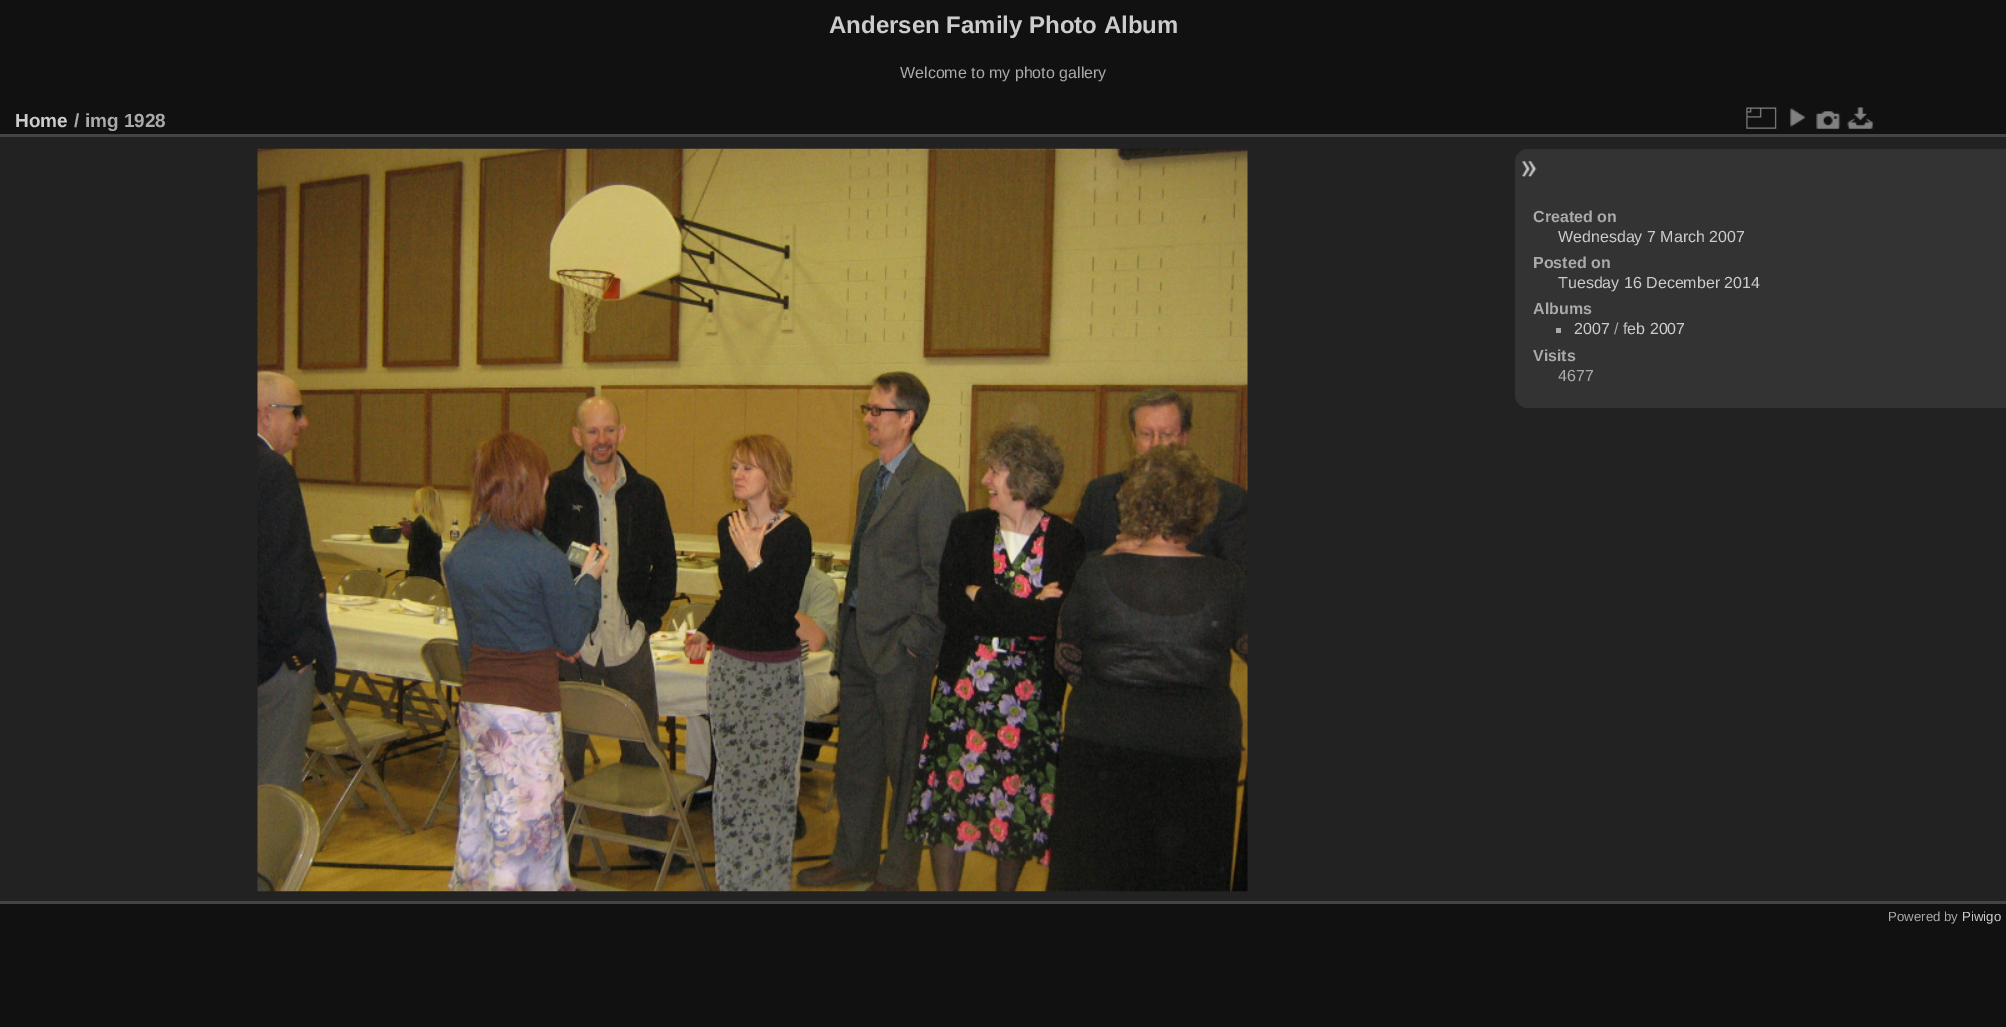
%!PS-Adobe-3.0
%%BoundingBox: 0 0 2006 1027
%%LanguageLevel: 3
%%Pages: 1
%%EndComments
%%BeginProlog
/setink { dup -16 bitshift 255 div exch dup -8 bitshift 255 and 255 div exch 255 and 255 div setrgbcolor } def
/usefont { [ exch dup neg 0 0 3 -1 roll 0 0 ] selectfont } def
/drawimage { 5 dict begin { /h /w /y /x /name } { exch def } forall
  gsave x y translate w h scale
  w h 8 [w 0 0 h 0 0] name (r) file false 3 colorimage grestore end } def
%%EndProlog
%%BeginSetup
<< /PageSize [2006 1027] >> setpagedevice
%%EndSetup
%%Page: 1 1
0 1027 translate 1 -1 scale
4 setmiterlimit
16#111111 setink
0 0 2006 1027 rectfill
/LiberationSans-Bold 24 usefont
16#CCCCCC setink
829 33 moveto (Andersen Family Photo Album) show
/LiberationSans-Regular 16 usefont
16#AAAAAA setink
900 78 moveto (Welcome to my photo gallery) show
[
    [0 137 2006 764 16#222222]
    [0 901 2006 3 16#444444]
    [0 134 2006 3 16#444444]
] { aload pop setink rectfill } forall
/LiberationSans-Bold 19 usefont
16#CCCCCC setink
15 127 moveto (Home) show
16#AAAAAA setink
74 127 moveto (/ img 1928) show
(img1.raw) 1746 107 31 22 drawimage
(img2.raw) 1790 108 16 19 drawimage
(img3.raw) 1816 111 25 18 drawimage
(img4.raw) 1847 107 27 22 drawimage
(img5.raw) 257 148 991 744 drawimage
16#333333 setink
1528 149 moveto 2006 149 lineto 2006 408 lineto 1528 408 lineto 1521 408 1515 402 1515 395 curveto 1515 162 lineto 1515 155 1521 149 1528 149 curveto closepath fill
(img6.raw) 1522 161 15 16 drawimage
/LiberationSans-Bold 16 usefont
16#AAAAAA setink
1533 222 moveto (Created on) show
/LiberationSans-Regular 16 usefont
16#CCCCCC setink
1558 242 moveto (Wednesday 7 March 2007) show
/LiberationSans-Bold 16 usefont
16#AAAAAA setink
1533 268 moveto (Posted on) show
/LiberationSans-Regular 16 usefont
16#CCCCCC setink
1558 288 moveto (Tuesday 16 December 2014) show
/LiberationSans-Bold 16 usefont
16#AAAAAA setink
1533 314 moveto (Albums) show
1556 328 5 5 rectfill
/LiberationSans-Regular 16 usefont
16#CCCCCC setink
1574 334 moveto (2007) show
16#AAAAAA setink
1614 334 moveto (/) show
16#CCCCCC setink
1623 334 moveto (feb 2007) show
/LiberationSans-Bold 16 usefont
16#AAAAAA setink
1533 361 moveto (Visits) show
/LiberationSans-Regular 16 usefont
1558 381 moveto (4677) show
/LiberationSans-Regular 13.25 usefont
1888 921 moveto (Powered by) show
16#CCCCCC setink
1962 921 moveto (Piwigo) show
showpage
%%EOF
